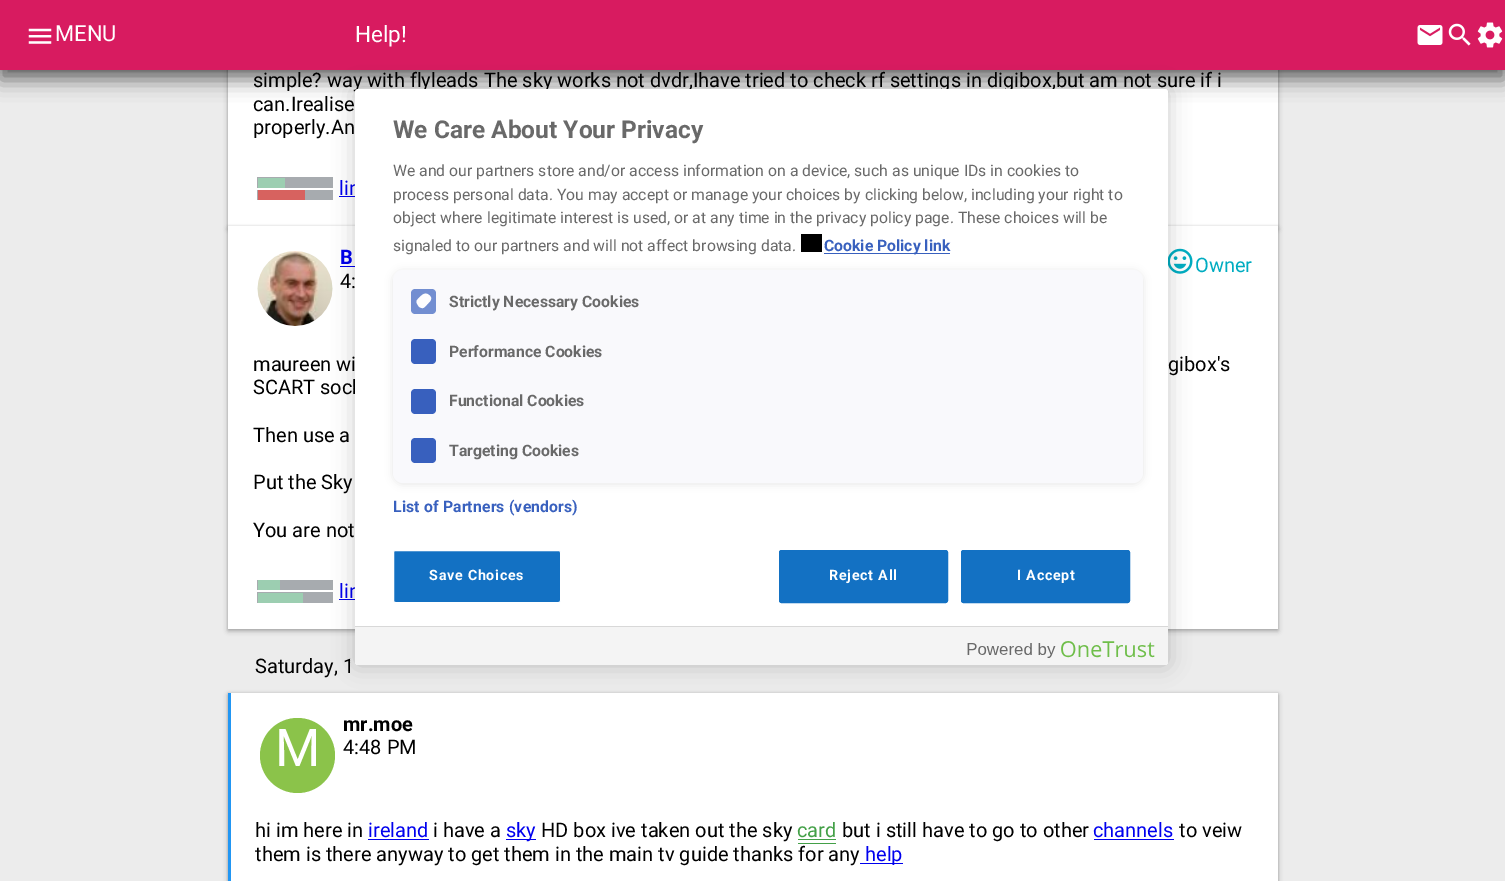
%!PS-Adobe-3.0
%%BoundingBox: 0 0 1505 881
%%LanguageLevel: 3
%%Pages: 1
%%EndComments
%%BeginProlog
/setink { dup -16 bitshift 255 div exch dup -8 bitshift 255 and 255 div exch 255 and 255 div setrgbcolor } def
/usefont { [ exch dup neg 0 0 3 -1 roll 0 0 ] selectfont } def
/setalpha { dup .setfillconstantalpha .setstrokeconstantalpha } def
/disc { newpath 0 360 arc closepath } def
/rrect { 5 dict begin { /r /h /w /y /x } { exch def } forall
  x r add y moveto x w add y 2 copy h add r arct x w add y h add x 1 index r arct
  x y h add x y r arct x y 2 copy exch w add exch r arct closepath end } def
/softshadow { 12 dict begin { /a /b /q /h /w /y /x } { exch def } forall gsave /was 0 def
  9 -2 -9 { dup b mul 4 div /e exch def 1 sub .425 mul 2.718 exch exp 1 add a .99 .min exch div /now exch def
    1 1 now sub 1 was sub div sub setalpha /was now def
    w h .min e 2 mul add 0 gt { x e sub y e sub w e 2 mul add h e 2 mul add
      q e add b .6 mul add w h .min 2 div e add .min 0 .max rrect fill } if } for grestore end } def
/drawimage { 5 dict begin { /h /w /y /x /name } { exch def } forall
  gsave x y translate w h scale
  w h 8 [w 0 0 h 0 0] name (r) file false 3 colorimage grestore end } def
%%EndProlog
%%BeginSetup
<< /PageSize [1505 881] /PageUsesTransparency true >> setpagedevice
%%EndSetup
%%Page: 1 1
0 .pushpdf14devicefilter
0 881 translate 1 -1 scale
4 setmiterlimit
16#ECECEC setink
0 0 1505 881 rectfill
16#000000 setink
228 -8 1050 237 0 2.5 0.28 softshadow
228 -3 1050 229 0 1 0.14 softshadow
16#FFFFFF setink
228 70 1050 156 rectfill
16#000000 setink
0 10 1505 70 0 10 0.52 softshadow
0 0 1505 70 0 5 0.26 softshadow
16#D81B60 setink
0 0 1505 70 rectfill
(img1.raw) 28 28 24 16 drawimage
/Roboto-Regular 22 usefont
16#FFFFFF setink
55 41 moveto (MENU) show
/Roboto-Regular 22.5 usefont
355 42 moveto (Help!) show
(img2.raw) 1417 25 26 20 drawimage
(img3.raw) 1448 23 23 23 drawimage
(img4.raw) 1477 22 26 26 drawimage
/Roboto-Regular 20 usefont
16#000000 setink
[
    [(simple? way with flyleads The sky works not dvdr,Ihave tried to check rf settings in digibox,but am not sure if i) 253 87]
    [(can.Irealise) 253 111]
    [(properly.An) 253 134]
] { aload pop moveto show } forall
[
    [257 177 76 11 16#A7ABAF]
    [258 178 27 10 16#9CCEB1]
    [257 190 76 10 16#A7ABAF]
    [258 190 47 10 16#D7625F]
] { aload pop setink rectfill } forall
16#0000EE setink
339 195 moveto (lin) show
339 196 16 1 rectfill
16#000000 setink
228 229 1050 402 0 2.5 0.28 softshadow
228 226 1050 403 0 1 0.14 softshadow
16#FFFFFF setink
228 226 1050 403 rectfill
(img5.raw) 257 251 76 75 drawimage
/Roboto-Bold 20 usefont
16#0000EE setink
340 264 moveto (B) show
340 266 15 1 rectfill
(img6.raw) 1168 248 25 26 drawimage
/Roboto-Regular 20 usefont
16#00ACC1 setink
1195 272 moveto (Owner) show
16#000000 setink
[
    [(4:) 340 288]
    [(maureen wi) 253 371]
    [(gibox's) 1168 371]
    [(SCART sock) 253 394]
    [(Then use a) 253 442]
    [(Put the Sky) 253 489]
    [(You are not) 253 537]
] { aload pop moveto show } forall
[
    [257 580 76 10 16#A7ABAF]
    [258 580 22 10 16#9CCEB1]
    [257 592 76 11 16#A7ABAF]
    [258 593 45 10 16#9CCEB1]
] { aload pop setink rectfill } forall
16#0000EE setink
339 598 moveto (lin) show
339 599 16 1 rectfill
16#000000 setink
255 673 moveto (Saturday, 1) show
228 695 1050 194 0 2.5 0.28 softshadow
228 693 1050 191 0 1 0.14 softshadow
16#FFFFFF setink
231 693 1047 188 rectfill
16#2196F3 setink
228 693 3 188 rectfill
/Roboto-Bold 20 usefont
16#000000 setink
343 731 moveto (mr.moe) show
16#8BC34A setink
297.5 755.5 37.5 disc fill
/Roboto-Regular 52 usefont
16#FFFFFF setink
275 766 moveto (M) show
/Roboto-Regular 20 usefont
16#000000 setink
343 754 moveto (4:48 PM) show
255 837 moveto (hi im here in) show
16#0000EE setink
368 837 moveto (ireland) show
368 839 61 1 rectfill
16#000000 setink
433 837 moveto (i have a) show
16#0000EE setink
506 839 30 1 rectfill
506 837 moveto (sky) show
16#000000 setink
541 837 moveto (HD box ive taken out the sky) show
16#43A047 setink
797 837 moveto (card) show
798 839 38 1 rectfill
16#000000 setink
842 837 moveto (but i still have to go to other) show
16#0000EE setink
1093 837 moveto (channels) show
1094 839 80 1 rectfill
16#000000 setink
1179 837 moveto (to veiw) show
255 861 moveto (them is there anyway to get them in the main tv guide thanks for any) show
16#43A047 setink
798 843 38 1 rectfill
16#0000EE setink
860 863 43 1 rectfill
865 861 moveto (help) show
16#000000 setink
355 89 813 576 3 11 0.2 softshadow
16#FFFFFF setink
355 89 813 576 3 rrect fill
/Roboto-Bold 24.5 usefont
16#696969 setink
393 138 moveto (We Care About Your Privacy) show
/Roboto-Regular 15.75 usefont
[
    [(We and our partners store and/or access information on a device, such as unique IDs in cookies to) 393 176]
    [(process personal data. You may accept or manage your choices by clicking below, including your right to) 393 200]
    [(object where legitimate interest is used, or at any time in the privacy policy page. These choices will be) 393 223]
    [(signaled to our partners and will not affect browsing data.) 393 251]
] { aload pop moveto show } forall
16#3860BE setink
824 253 126 1 rectfill
/Roboto-Bold 15.75 usefont
824 251 moveto (Cookie Policy link) show
16#000000 setink
801 234 21 18 rectfill
393 271 750 213 10 4 0.1 softshadow
16#F9F9FC setink
393 270 750 213 10 rrect fill
16#728ED1 setink
415 289 moveto 432 289 lineto 434 289 436 291 436 293 curveto 436 310 lineto 436 312 434 314 432 314 curveto 415 314 lineto 413 314 411 312 411 310 curveto 411 293 lineto 411 291 413 289 415 289 curveto closepath fill
16#FDFDFE setink
417.5 299.5 moveto 420.5 296.5 424.5 291 429 295 curveto 433.5 298.5 430 301.5 427 304.5 curveto 426 305.5 424.5 307.5 423 308 curveto 420.5 308.5 418.5 306.5 417.5 304.5 curveto 416.5 303 416 301 417.5 299.5 curveto closepath fill
16#696969 setink
449 307 moveto (Strictly Necessary Cookies) show
16#3860BE setink
415 339 moveto 432 339 lineto 434 339 436 341 436 343 curveto 436 360 lineto 436 362 434 364 432 364 curveto 415 364 lineto 413 364 411 362 411 360 curveto 411 343 lineto 411 341 413 339 415 339 curveto closepath fill
16#696969 setink
449 357 moveto (Performance Cookies) show
16#3860BE setink
415 389 moveto 432 389 lineto 434 389 436 391 436 393 curveto 436 410 lineto 436 412 434 414 432 414 curveto 415 414 lineto 413 414 411 412 411 410 curveto 411 393 lineto 411 391 413 389 415 389 curveto closepath fill
16#696969 setink
449 406 moveto (Functional Cookies) show
16#3860BE setink
415 438 moveto 432 438 lineto 434 438 436 440 436 442 curveto 436 459 lineto 436 461 434 463 432 463 curveto 415 463 lineto 413 463 411 461 411 459 curveto 411 442 lineto 411 440 413 438 415 438 curveto closepath fill
16#696969 setink
449 456 moveto (Targeting Cookies) show
16#3860BE setink
393 512 moveto 0.15 0 (List of Partners \(vendors\)) ashow
16#1371C3 setink
393.5 550.5 167 52 2 rrect gsave fill grestore
16#FFFFFF setink
stroke
/Roboto-Bold 14.25 usefont
429 580 moveto 0.75 0 (Save Choices) ashow
16#1371C3 setink
779.5 550.5 168 52 2 rrect gsave fill grestore
stroke
16#FFFFFF setink
829 580 moveto 0.75 0 (Reject All) ashow
16#1371C3 setink
961.5 550.5 168 52 2 rrect gsave fill grestore
stroke
16#FFFFFF setink
1017 580 moveto 0.75 0 (I Accept) ashow
16#F4F4F4 setink
355 626 moveto 1168 626 lineto 1168 662 lineto 1168 663.5 1166.5 665 1165 665 curveto 358 665 lineto 356.5 665 355 663.5 355 662 curveto closepath fill
16#D8D8D8 setink
355 626 813 1 rectfill
(img7.raw) 967 641 188 17 drawimage
.poppdf14devicefilter showpage
%%EOF
